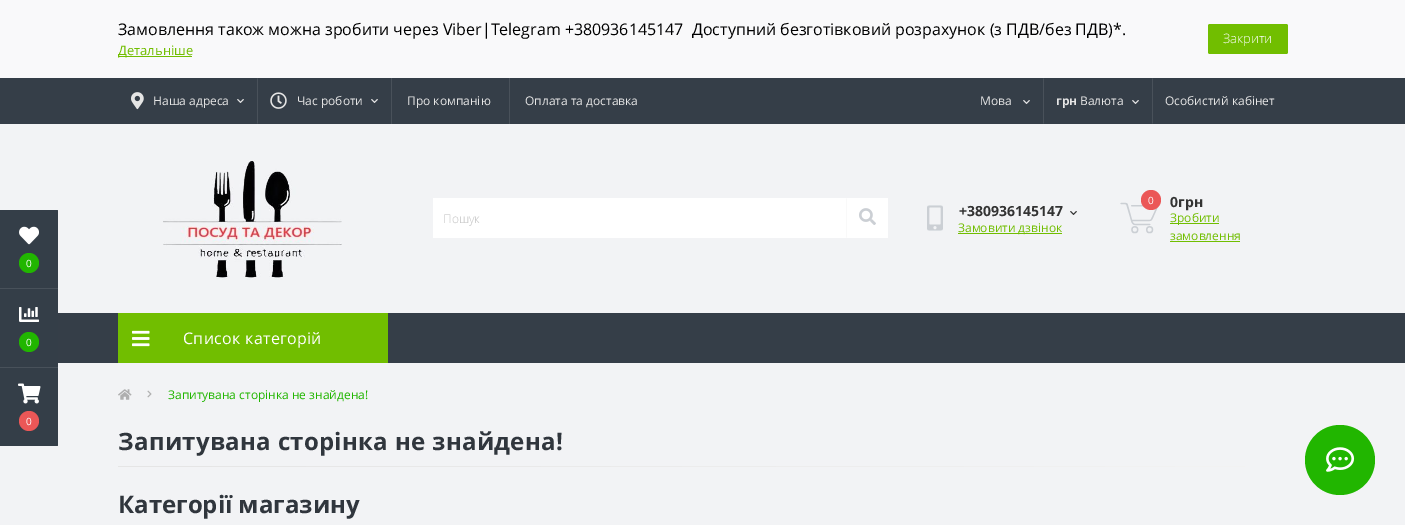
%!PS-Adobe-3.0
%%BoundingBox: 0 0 1405 525
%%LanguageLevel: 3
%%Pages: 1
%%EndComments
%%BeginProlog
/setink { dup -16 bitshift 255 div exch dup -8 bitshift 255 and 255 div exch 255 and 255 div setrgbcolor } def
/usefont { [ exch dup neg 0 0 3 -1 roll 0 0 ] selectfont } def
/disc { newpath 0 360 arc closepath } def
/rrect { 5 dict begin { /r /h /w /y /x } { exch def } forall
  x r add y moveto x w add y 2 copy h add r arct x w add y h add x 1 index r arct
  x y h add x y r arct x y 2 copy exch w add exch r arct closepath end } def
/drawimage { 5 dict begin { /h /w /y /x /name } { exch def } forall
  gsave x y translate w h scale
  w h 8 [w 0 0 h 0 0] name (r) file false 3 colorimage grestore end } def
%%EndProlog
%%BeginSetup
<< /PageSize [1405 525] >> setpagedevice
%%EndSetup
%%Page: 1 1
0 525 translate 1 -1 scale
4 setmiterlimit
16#F2F3F5 setink
0 0 1405 525 rectfill
16#F9F9FA setink
0 0 1405 78 rectfill
/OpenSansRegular-Regular 16 usefont
16#000000 setink
118 35 moveto (Замовлення також можна зробити через Viber|Telegram +380936145147  Доступний безготівковий розрахунок \(з ПДВ/без ПДВ\)*.) show
16#71BE00 setink
118 56 74 1 rectfill
/OpenSansRegular-Regular 13 usefont
118 55 moveto (Детальніше) show
1208 24 80 30 2 rrect fill
/OpenSans-Light 13 usefont
16#FFFFFF setink
1223 43 moveto (Закрити) show
16#353E48 setink
0 78 1405 46 rectfill
(img1.raw) 131 92 13 18 drawimage
/OpenSansRegular-Regular 12 usefont
16#E5E5E5 setink
153 105 moveto (Наша адреса) show
(img2.raw) 237 99 7 4 drawimage
16#49515A setink
257 124 moveto 257 78 lineto 258 79 lineto 258 123 lineto closepath fill
(img3.raw) 270 92 17 17 drawimage
16#E5E5E5 setink
297 105 moveto (Час роботи) show
(img2.raw) 371 99 7 4 drawimage
16#49515A setink
391 78 1 46 rectfill
16#E5E5E5 setink
407 105 moveto (Про компанію) show
16#49515A setink
509 78 1 46 rectfill
16#E5E5E5 setink
525 105 moveto (Оплата та доставка) show
980 105 moveto (Мова) show
(img2.raw) 1023 100 7 4 drawimage
16#49515A setink
1043 124 moveto 1043 78 lineto 1044 79 lineto 1044 123 lineto closepath fill
/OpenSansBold-Bold 12 usefont
16#E5E5E5 setink
1056 105 moveto (грн) show
/OpenSansRegular-Regular 12 usefont
1080 105 moveto (Валюта) show
(img2.raw) 1132 100 7 4 drawimage
16#49515A setink
1152 124 moveto 1152 78 lineto 1153 79 lineto 1153 123 lineto closepath fill
16#E5E5E5 setink
1165 105 moveto (Особистий кабінет) show
(img4.raw) 163 160 179 120 drawimage
16#FFFFFF setink
433 198 455 40 rectfill
/OpenSans-Light 12 usefont
16#C2C2C2 setink
443 223 moveto (Пошук) show
16#F9F9F9 setink
846 238 moveto 846 198 lineto 847 199 lineto 847 237 lineto closepath fill
(img5.raw) 859 208 17 17 drawimage
(img6.raw) 927 205 16 26 drawimage
/OpenSansBold-Bold 14 usefont
16#333333 setink
959 216 moveto (+380936145147) show
(img7.raw) 1070 211 7 4 drawimage
16#71BE00 setink
958 233 104 1 rectfill
/OpenSansRegular-Regular 12 usefont
958 232 moveto (Замовити дзвінок) show
(img8.raw) 1120 202 38 32 drawimage
16#EB5757 setink
1151 200 10 disc fill
/OpenSansRegular-Regular 10 usefont
16#FFFFFF setink
1148 204 moveto (0) show
/OpenSansBold-Bold 14 usefont
16#333333 setink
1170 207 moveto (0грн) show
16#71BE00 setink
1170 223 49 1 rectfill
/OpenSansRegular-Regular 12 usefont
1170 222 moveto (Зробити) show
1170 240 moveto (замовлення) show
1170 241 70 1 rectfill
16#343E48 setink
0 210 moveto 57 210 lineto 57.5 210 58 210.5 58 211 curveto 58 445 lineto 58 445.5 57.5 446 57 446 curveto 0 446 lineto closepath fill
(img9.raw) 19 226 20 19 drawimage
16#21B600 setink
29 263 10 disc fill
/OpenSansRegular-Regular 10 usefont
16#FFFFFF setink
26 267 moveto (0) show
16#48515A setink
0 288 58 1 rectfill
(img10.raw) 19 307 20 15 drawimage
16#21B600 setink
29 342 10 disc fill
16#FFFFFF setink
26 346 moveto (0) show
16#48515A setink
0 367 58 1 rectfill
(img11.raw) 18 383 23 21 drawimage
16#EB5757 setink
29 421 10 disc fill
16#FFFFFF setink
26 425 moveto (0) show
16#353E48 setink
58 313 1347 50 rectfill
16#71BE00 setink
118 313 270 50 rectfill
(img12.raw) 132 330 18 17 drawimage
/OpenSansRegular-Regular 16 usefont
16#FFFFFF setink
183 344 moveto 0.3 0 (Список категорій) ashow
(img13.raw) 118 389 14 11 drawimage
(img14.raw) 147 390 5 8 drawimage
/OpenSansRegular-Regular 12 usefont
16#21B600 setink
168 399 moveto (Запитувана сторінка не знайдена!) show
/OpenSansBold-Bold 24 usefont
16#30363D setink
118 450 moveto 0.3 0 (Запитувана сторінка не знайдена!) ashow
gsave 118 466 moveto 1246 466 lineto 1246 467 lineto 118 467 lineto closepath clip newpath
<< /ShadingType 2 /ColorSpace /DeviceRGB /Coords [118 467 1288 466] /Extend [true true] /Function << /FunctionType 2 /Domain [0 1] /C0 [0.898 0.898 0.898] /C1 [0.953 0.953 0.953] /N 1 >> >> shfill grestore
118 513 moveto (Категорії магазину) show
16#21B600 setink
1340 460 35 disc fill
(img15.raw) 1326 447 29 25 drawimage
showpage
%%EOF
